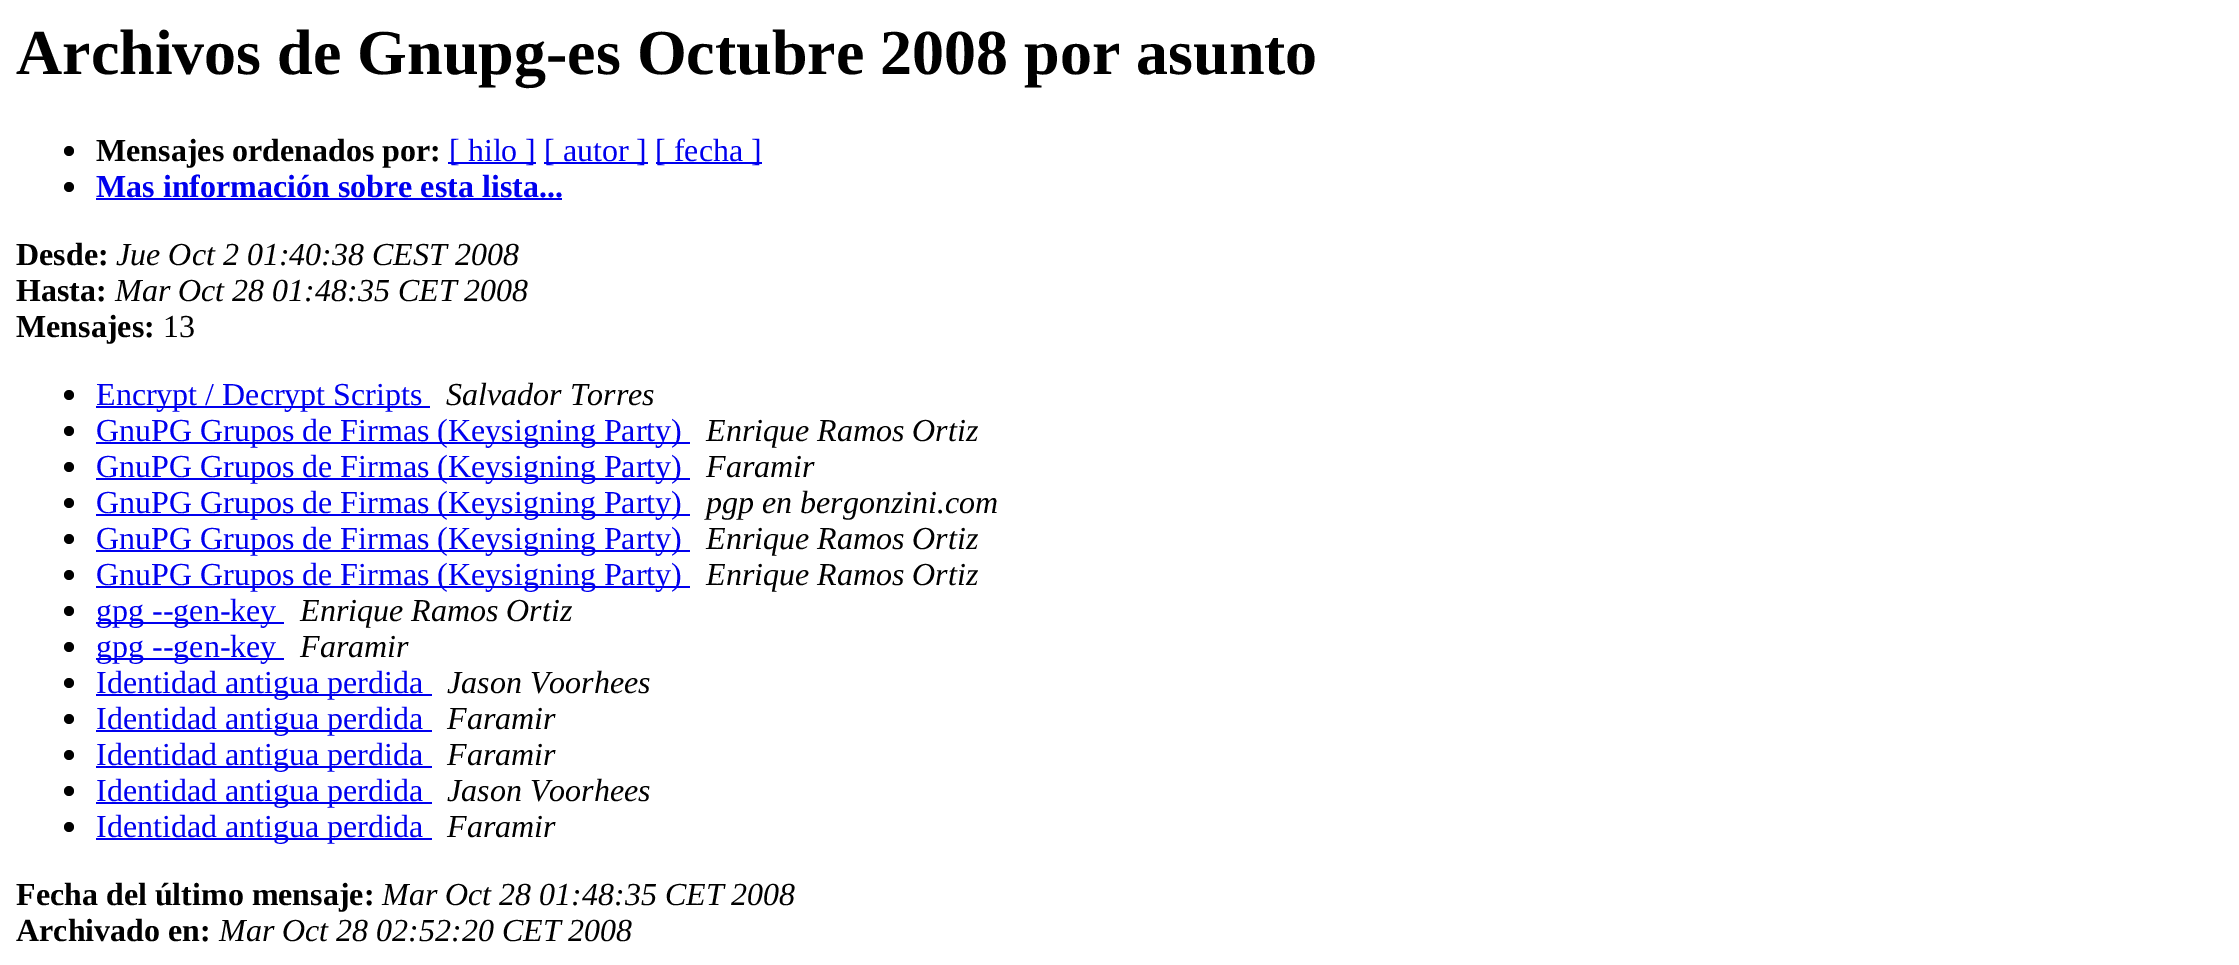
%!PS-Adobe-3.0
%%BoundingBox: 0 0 2239 965
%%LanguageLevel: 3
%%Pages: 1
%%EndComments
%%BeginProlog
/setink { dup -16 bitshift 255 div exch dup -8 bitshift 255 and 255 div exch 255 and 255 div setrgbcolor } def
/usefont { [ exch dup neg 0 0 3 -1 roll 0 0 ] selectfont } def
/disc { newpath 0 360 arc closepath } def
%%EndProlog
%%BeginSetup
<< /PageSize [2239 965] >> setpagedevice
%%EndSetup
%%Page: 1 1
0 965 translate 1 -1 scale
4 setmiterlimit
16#FFFFFF setink
0 0 2239 965 rectfill
/LiberationSerif-Bold 64 usefont
16#000000 setink
16 74 moveto (Archivos de Gnupg-es Octubre 2008 por asunto) show
69 151 5 disc fill
/LiberationSerif-Bold 32 usefont
96 161 moveto (Mensajes ordenados por:) show
16#0000EE setink
448 162 88 2 rectfill
/LiberationSerif-Regular 32 usefont
449 161 moveto ([ hilo ]) show
544 162 104 2 rectfill
544 161 moveto ([ autor ]) show
656 162 106 2 rectfill
655 161 moveto ([ fecha ]) show
16#000000 setink
69 187 5 disc fill
/LiberationSerif-Bold 32 usefont
16#0000EE setink
96 197 moveto (Mas información sobre esta lista...) show
96 198 466 2 rectfill
16#000000 setink
16 265 moveto (Desde:) show
/LiberationSerif-Italic 32 usefont
116 265 moveto (Jue Oct 2 01:40:38 CEST 2008) show
/LiberationSerif-Bold 32 usefont
16 301 moveto (Hasta:) show
/LiberationSerif-Italic 32 usefont
115 301 moveto (Mar Oct 28 01:48:35 CET 2008) show
/LiberationSerif-Bold 32 usefont
16 337 moveto (Mensajes:) show
/LiberationSerif-Regular 32 usefont
163 337 moveto (13) show
69 395 5 disc fill
16#0000EE setink
96 406 334 2 rectfill
96 405 moveto (Encrypt / Decrypt Scripts) show
/LiberationSerif-Italic 32 usefont
16#000000 setink
446 405 moveto (Salvador Torres) show
69 431 5 disc fill
16#0000EE setink
96 442 594 2 rectfill
/LiberationSerif-Regular 32 usefont
96 441 moveto (GnuPG Grupos de Firmas \(Keysigning Party\)) show
/LiberationSerif-Italic 32 usefont
16#000000 setink
706 441 moveto (Enrique Ramos Ortiz) show
69 467 5 disc fill
16#0000EE setink
96 478 594 2 rectfill
/LiberationSerif-Regular 32 usefont
96 477 moveto (GnuPG Grupos de Firmas \(Keysigning Party\)) show
/LiberationSerif-Italic 32 usefont
16#000000 setink
706 477 moveto (Faramir) show
69 503 5 disc fill
16#0000EE setink
96 514 594 2 rectfill
/LiberationSerif-Regular 32 usefont
96 513 moveto (GnuPG Grupos de Firmas \(Keysigning Party\)) show
/LiberationSerif-Italic 32 usefont
16#000000 setink
706 513 moveto (pgp en bergonzini.com) show
69 539 5 disc fill
16#0000EE setink
96 550 594 2 rectfill
/LiberationSerif-Regular 32 usefont
96 549 moveto (GnuPG Grupos de Firmas \(Keysigning Party\)) show
/LiberationSerif-Italic 32 usefont
16#000000 setink
706 549 moveto (Enrique Ramos Ortiz) show
69 575 5 disc fill
16#0000EE setink
96 586 594 2 rectfill
/LiberationSerif-Regular 32 usefont
96 585 moveto (GnuPG Grupos de Firmas \(Keysigning Party\)) show
/LiberationSerif-Italic 32 usefont
16#000000 setink
706 585 moveto (Enrique Ramos Ortiz) show
69 611 5 disc fill
16#0000EE setink
96 622 188 2 rectfill
/LiberationSerif-Regular 32 usefont
96 621 moveto (gpg --gen-key) show
/LiberationSerif-Italic 32 usefont
16#000000 setink
300 621 moveto (Enrique Ramos Ortiz) show
69 647 5 disc fill
16#0000EE setink
96 658 188 2 rectfill
/LiberationSerif-Regular 32 usefont
96 657 moveto (gpg --gen-key) show
/LiberationSerif-Italic 32 usefont
16#000000 setink
300 657 moveto (Faramir) show
69 683 5 disc fill
16#0000EE setink
96 694 336 2 rectfill
/LiberationSerif-Regular 32 usefont
96 693 moveto (Identidad antigua perdida) show
/LiberationSerif-Italic 32 usefont
16#000000 setink
447 693 moveto (Jason Voorhees) show
69 719 5 disc fill
16#0000EE setink
96 730 336 2 rectfill
/LiberationSerif-Regular 32 usefont
96 729 moveto (Identidad antigua perdida) show
/LiberationSerif-Italic 32 usefont
16#000000 setink
447 729 moveto (Faramir) show
69 755 5 disc fill
16#0000EE setink
96 766 336 2 rectfill
/LiberationSerif-Regular 32 usefont
96 765 moveto (Identidad antigua perdida) show
/LiberationSerif-Italic 32 usefont
16#000000 setink
447 765 moveto (Faramir) show
69 791 5 disc fill
16#0000EE setink
96 802 336 2 rectfill
/LiberationSerif-Regular 32 usefont
96 801 moveto (Identidad antigua perdida) show
/LiberationSerif-Italic 32 usefont
16#000000 setink
447 801 moveto (Jason Voorhees) show
69 827 5 disc fill
16#0000EE setink
96 838 336 2 rectfill
/LiberationSerif-Regular 32 usefont
96 837 moveto (Identidad antigua perdida) show
/LiberationSerif-Italic 32 usefont
16#000000 setink
447 837 moveto (Faramir) show
/LiberationSerif-Bold 32 usefont
16 905 moveto (Fecha del último mensaje:) show
/LiberationSerif-Italic 32 usefont
382 905 moveto (Mar Oct 28 01:48:35 CET 2008) show
/LiberationSerif-Bold 32 usefont
16 941 moveto (Archivado en:) show
/LiberationSerif-Italic 32 usefont
219 941 moveto (Mar Oct 28 02:52:20 CET 2008) show
showpage
%%EOF
